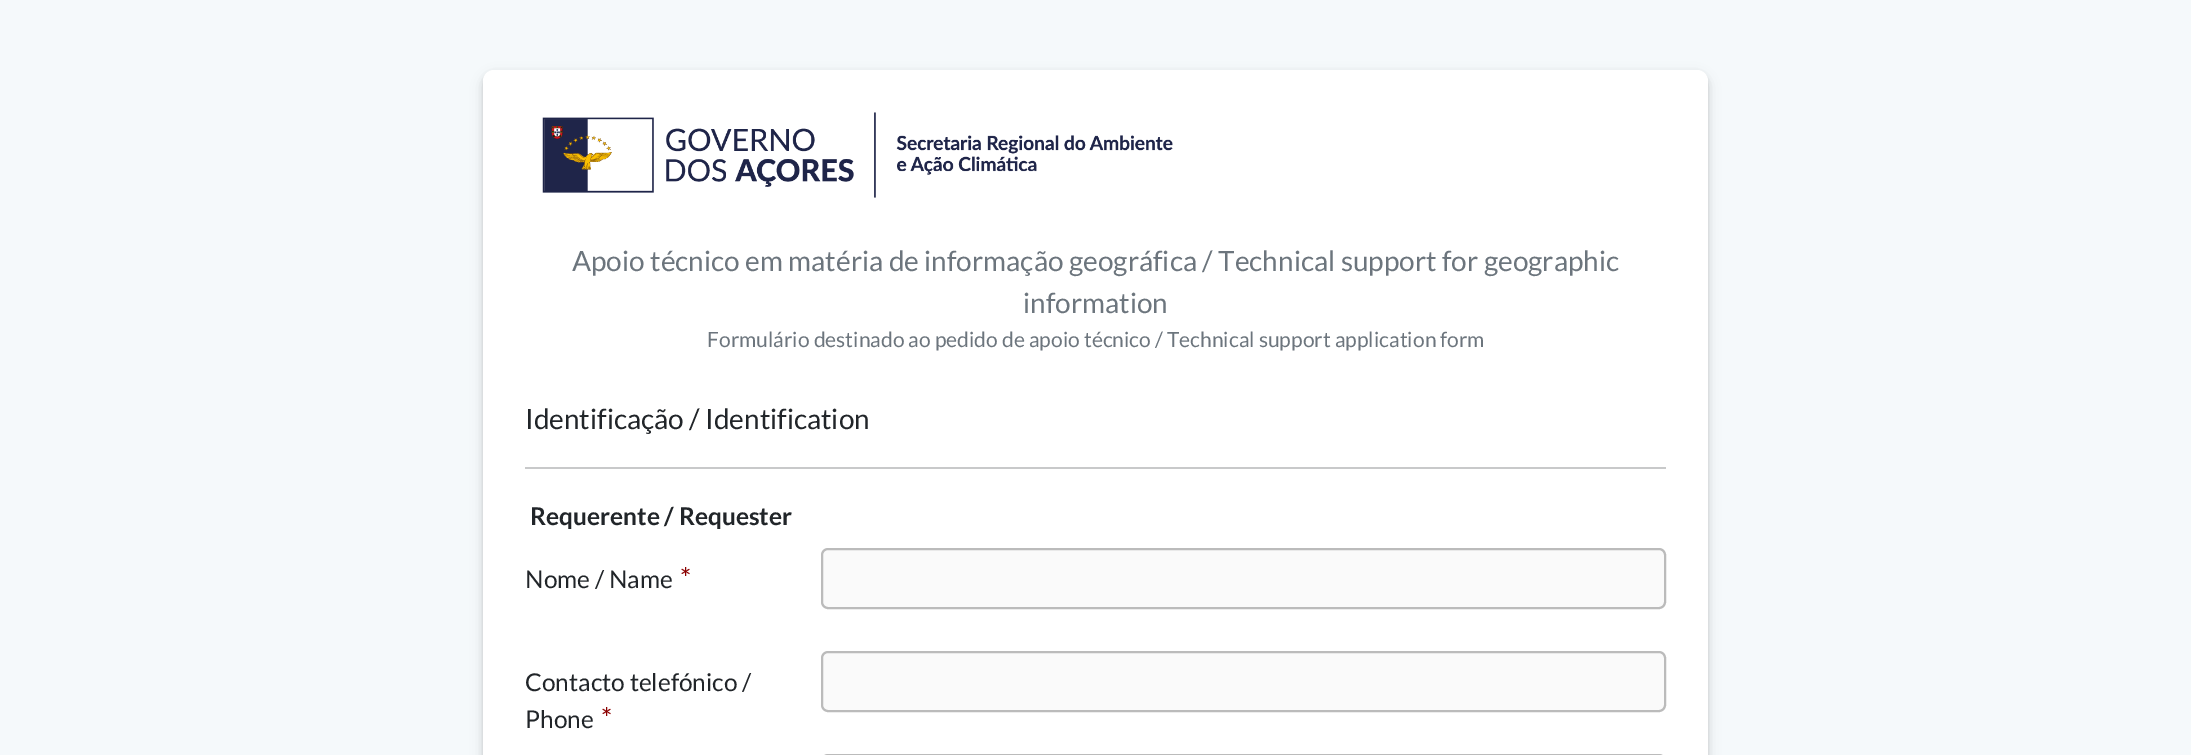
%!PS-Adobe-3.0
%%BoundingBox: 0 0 2191 755
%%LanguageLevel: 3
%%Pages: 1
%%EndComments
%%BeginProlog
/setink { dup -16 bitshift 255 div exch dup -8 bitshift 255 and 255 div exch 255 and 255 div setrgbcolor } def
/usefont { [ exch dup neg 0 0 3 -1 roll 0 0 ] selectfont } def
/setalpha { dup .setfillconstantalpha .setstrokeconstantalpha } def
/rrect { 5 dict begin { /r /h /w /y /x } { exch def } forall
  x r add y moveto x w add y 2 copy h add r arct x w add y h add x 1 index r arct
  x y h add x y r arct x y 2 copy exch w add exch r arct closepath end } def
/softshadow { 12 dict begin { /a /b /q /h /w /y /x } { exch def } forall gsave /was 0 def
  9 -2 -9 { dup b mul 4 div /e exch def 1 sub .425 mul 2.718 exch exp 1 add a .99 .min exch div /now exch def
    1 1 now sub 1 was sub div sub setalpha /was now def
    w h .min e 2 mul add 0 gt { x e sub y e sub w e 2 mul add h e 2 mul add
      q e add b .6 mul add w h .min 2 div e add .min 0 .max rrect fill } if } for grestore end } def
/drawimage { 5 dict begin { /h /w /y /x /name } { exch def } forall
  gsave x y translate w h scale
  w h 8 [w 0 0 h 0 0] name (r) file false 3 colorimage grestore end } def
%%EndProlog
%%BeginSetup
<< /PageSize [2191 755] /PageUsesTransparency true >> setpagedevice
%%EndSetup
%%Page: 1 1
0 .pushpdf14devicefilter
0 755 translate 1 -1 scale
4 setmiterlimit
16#F5F9FB setink
0 0 2191 755 rectfill
16#000000 setink
483 72 1225 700 11 2 0.11 softshadow
483 75 1225 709 11 6 0.13 softshadow
16#FFFFFF setink
483 70 1225 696 11 rrect fill
(img1.raw) 542 112 631 86 drawimage
/Lato-Regular 28 usefont
16#6C757D setink
572 271 moveto (Apoio técnico em matéria de informação geográfica / Technical support for geographic) show
1023 313 moveto (information) show
/Lato-Regular 21 usefont
707 347 moveto (Formulário destinado ao pedido de apoio técnico / Technical support application form) show
/Lato-Regular 28 usefont
16#212529 setink
525 429 moveto (Identificação / Identification) show
16#C8C9CA setink
525 467 1141 2 rectfill
/Lato-Bold 24.5 usefont
16#212529 setink
530 525 moveto (Requerente / Requester) show
/Lato-Regular 24.5 usefont
525 588 moveto (Nome / Name) show
/Lato-Regular 28 usefont
16#8B0000 setink
680 588 moveto (*) show
16#FAFAFA setink
822 549 843 59 6 rrect gsave fill grestore
16#BBBBBB setink
2 setlinewidth
stroke
/Lato-Regular 24.5 usefont
16#212529 setink
525 691 moveto (Contacto telefónico /) show
525 728 moveto (Phone) show
/Lato-Regular 28 usefont
16#8B0000 setink
601 728 moveto (*) show
16#FAFAFA setink
822 652 843 59 6 rrect gsave fill grestore
16#BBBBBB setink
stroke
822 755 843 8 6 rrect stroke
.poppdf14devicefilter showpage
%%EOF
